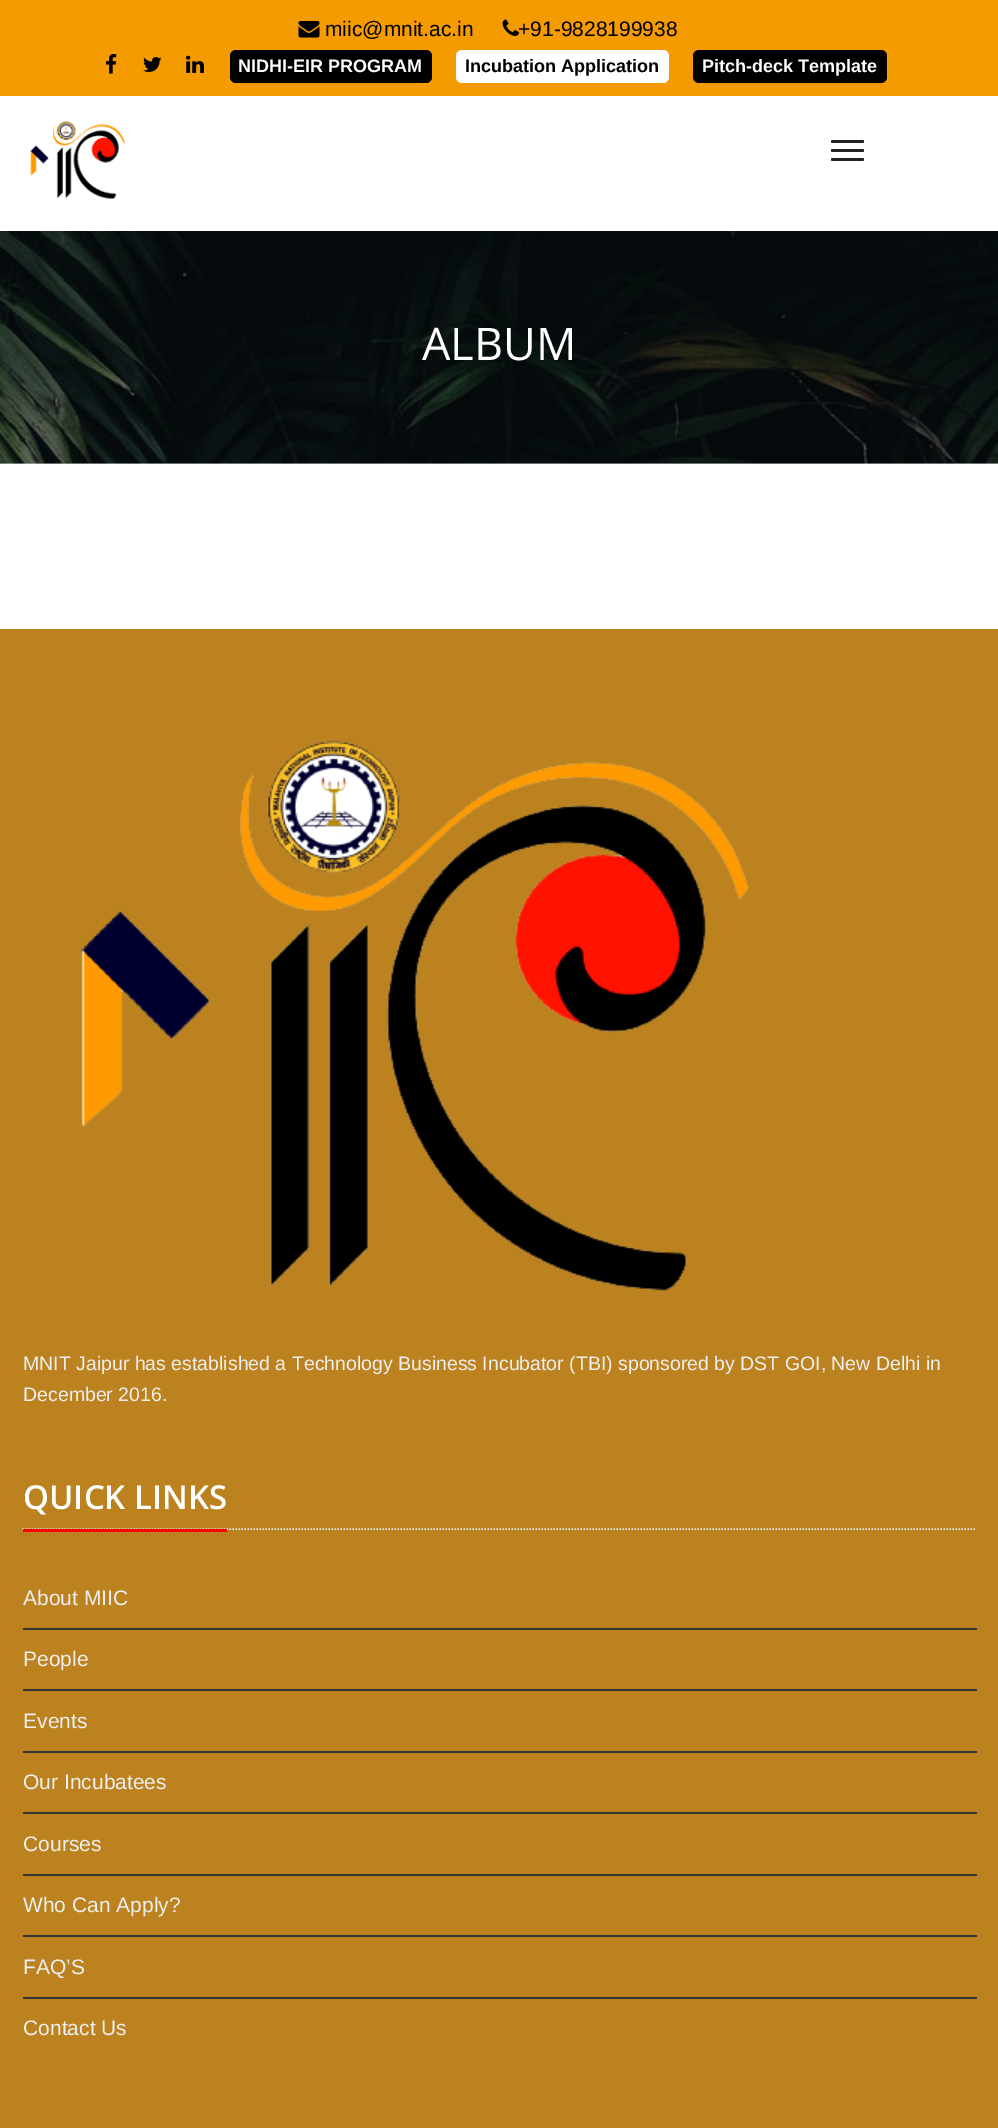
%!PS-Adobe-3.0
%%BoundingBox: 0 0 998 2128
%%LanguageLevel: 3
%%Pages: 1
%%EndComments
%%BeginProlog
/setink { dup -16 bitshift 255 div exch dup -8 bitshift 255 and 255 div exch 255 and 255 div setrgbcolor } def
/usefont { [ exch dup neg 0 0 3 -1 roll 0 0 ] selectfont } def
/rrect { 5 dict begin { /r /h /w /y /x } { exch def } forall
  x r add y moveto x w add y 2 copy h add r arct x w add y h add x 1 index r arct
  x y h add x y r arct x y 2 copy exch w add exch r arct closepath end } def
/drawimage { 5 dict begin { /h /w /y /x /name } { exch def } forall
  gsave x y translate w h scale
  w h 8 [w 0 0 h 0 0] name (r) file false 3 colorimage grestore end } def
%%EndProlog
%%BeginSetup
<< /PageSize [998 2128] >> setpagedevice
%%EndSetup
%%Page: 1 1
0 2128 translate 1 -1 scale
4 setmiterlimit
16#FFFFFF setink
0 0 998 2128 rectfill
16#CCCCCC setink
0 463 998 1 rectfill
16#F49B01 setink
0 0 998 96 rectfill
(img1.raw) 298 21 22 17 drawimage
/LiberationSans-Regular 21 usefont
16#000000 setink
325 36 moveto (miic@mnit.ac.in) show
(img2.raw) 502 19 17 17 drawimage
518 36 moveto (+91-9828199938) show
(img3.raw) 106 54 11 20 drawimage
(img4.raw) 143 57 19 15 drawimage
(img5.raw) 186 55 18 18 drawimage
230 50 202 33 6 rrect fill
/LiberationSans-Bold 18 usefont
16#FFFFFF setink
238 72 moveto (NIDHI-EIR PROGRAM) show
456 50 213 33 6 rrect fill
16#000000 setink
465 72 moveto (Incubation Application) show
693 50 194 33 6 rrect fill
16#FFFFFF setink
702 72 moveto (Pitch-deck Template) show
(img6.raw) 30 121 95 78 drawimage
16#222222 setink
831 140 33 3 1.5 rrect fill
831 149 33 3 1.5 rrect fill
831 158 33 3 1.5 rrect fill
(img7.raw) 0 231 998 233 drawimage
/OpenSans-Regular 45 usefont
16#FFFFFF setink
422 360 moveto (ALBUM) show
16#BB821F setink
0 629 998 1499 rectfill
(img8.raw) 80 740 669 551 drawimage
/LiberationSans-Regular 19.5 usefont
16#EEEEEE setink
23 1370 moveto (MNIT Jaipur has established a Technology Business Incubator \(TBI\) sponsored by DST GOI, New Delhi in) show
23 1401 moveto (December 2016.) show
16#E4E9F0 setink
1.5 setlinewidth
[1.5 1.5] 0 setdash
22.5 1529 moveto 976.5 1529 lineto stroke
16#FF0000 setink
23 1529 204 3 rectfill
/OpenSans-SemiBold 33 usefont
16#FFFFFF setink
23 1509 moveto (QUICK LINKS) show
/LiberationSans-Regular 21 usefont
16#EEEEEE setink
23 1605 moveto (About MIIC) show
16#353535 setink
23 1628 954 2 rectfill
16#EEEEEE setink
23 1666 moveto (People) show
16#353535 setink
23 1689 954 2 rectfill
16#EEEEEE setink
23 1728 moveto (Events) show
16#353535 setink
23 1751 954 2 rectfill
16#EEEEEE setink
23 1789 moveto (Our Incubatees) show
16#353535 setink
23 1812 954 2 rectfill
16#EEEEEE setink
23 1851 moveto (Courses) show
16#353535 setink
23 1874 954 2 rectfill
16#EEEEEE setink
23 1912 moveto (Who Can Apply?) show
16#353535 setink
23 1935 954 2 rectfill
16#EEEEEE setink
23 1974 moveto (FAQ’S) show
16#353535 setink
23 1997 954 2 rectfill
16#EEEEEE setink
23 2035 moveto (Contact Us) show
showpage
%%EOF
